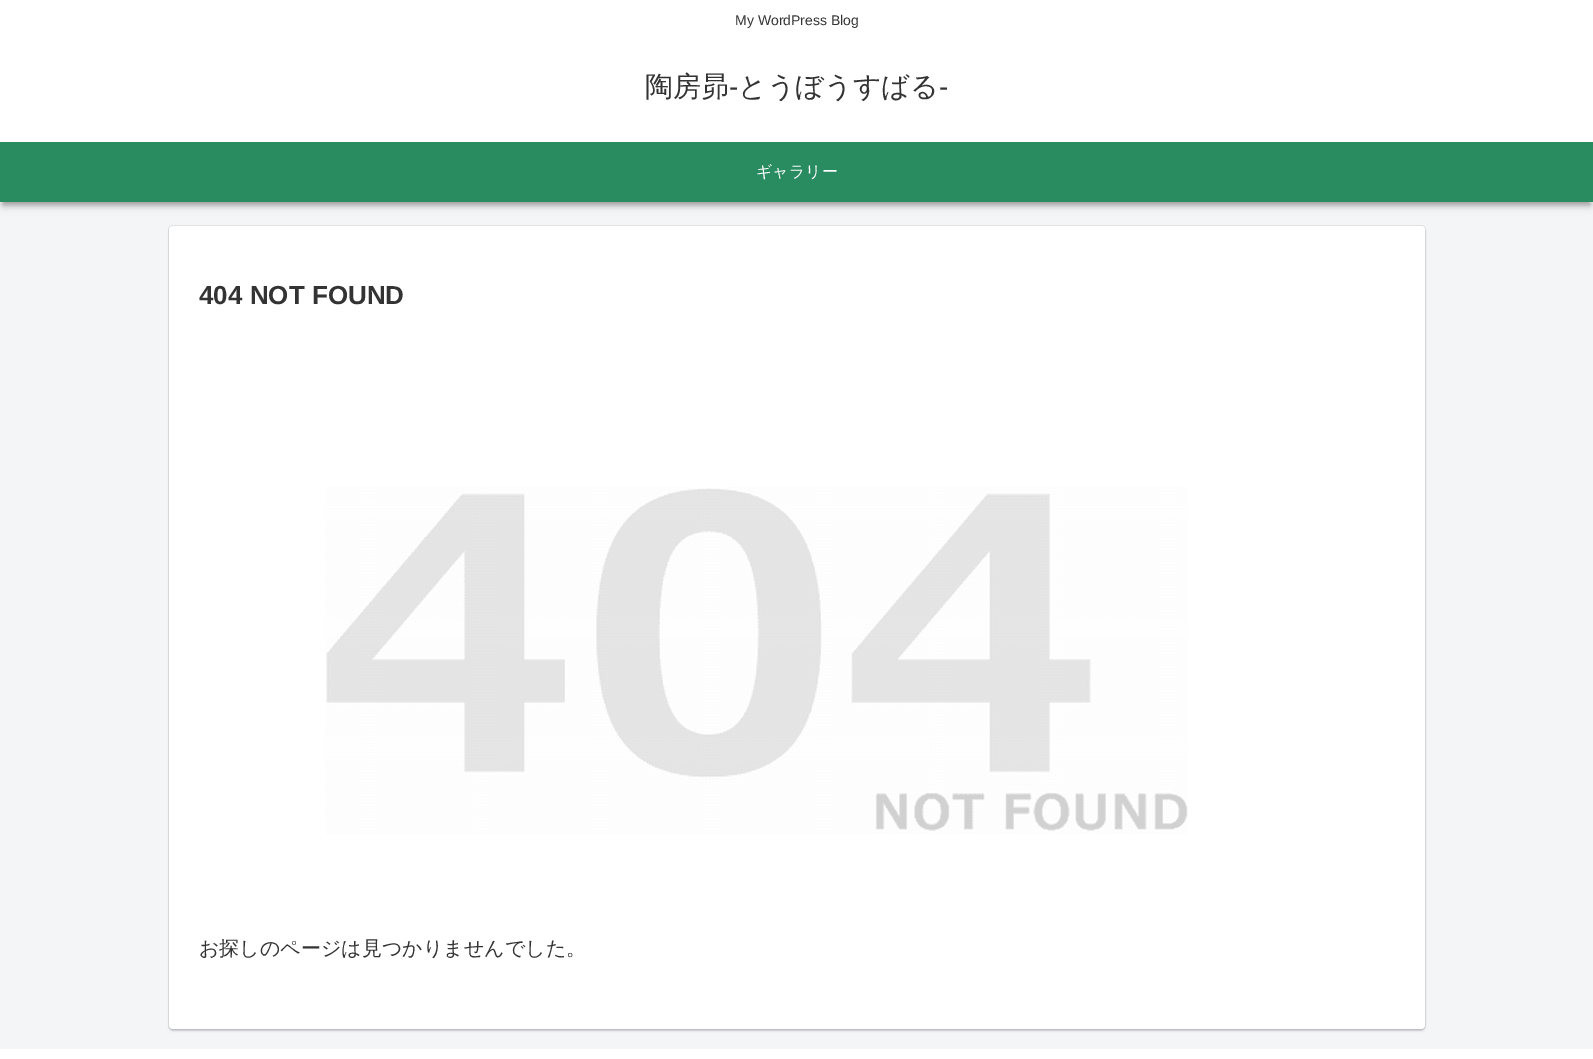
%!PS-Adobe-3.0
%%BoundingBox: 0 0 1593 1059
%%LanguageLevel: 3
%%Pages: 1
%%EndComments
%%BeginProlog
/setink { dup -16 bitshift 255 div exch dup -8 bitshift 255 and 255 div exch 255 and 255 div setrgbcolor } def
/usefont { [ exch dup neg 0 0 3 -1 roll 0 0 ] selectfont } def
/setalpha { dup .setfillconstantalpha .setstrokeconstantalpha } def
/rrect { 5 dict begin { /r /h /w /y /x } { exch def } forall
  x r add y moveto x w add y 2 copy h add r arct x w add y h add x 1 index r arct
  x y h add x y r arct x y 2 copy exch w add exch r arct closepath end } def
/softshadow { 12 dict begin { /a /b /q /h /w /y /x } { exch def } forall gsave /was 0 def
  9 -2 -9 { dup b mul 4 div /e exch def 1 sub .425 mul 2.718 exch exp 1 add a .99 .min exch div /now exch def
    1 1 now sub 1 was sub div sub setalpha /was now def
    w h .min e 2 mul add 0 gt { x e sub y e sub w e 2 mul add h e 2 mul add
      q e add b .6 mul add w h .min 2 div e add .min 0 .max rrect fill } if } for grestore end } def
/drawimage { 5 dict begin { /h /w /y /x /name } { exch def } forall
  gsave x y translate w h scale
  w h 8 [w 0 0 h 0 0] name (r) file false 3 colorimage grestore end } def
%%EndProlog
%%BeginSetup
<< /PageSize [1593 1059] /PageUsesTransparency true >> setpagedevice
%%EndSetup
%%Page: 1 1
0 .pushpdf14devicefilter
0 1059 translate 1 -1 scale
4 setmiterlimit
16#F4F5F7 setink
0 0 1593 1059 rectfill
16#000000 setink
3 9 1587 196 0 5 0.18 softshadow
3 9 1587 196 0 2.5 0.24 softshadow
16#FFFFFF setink
0 0 1593 142 rectfill
/LiberationSans-Regular 14 usefont
16#333333 setink
735 25 moveto (My WordPress Blog) show
/WenQuanYiZenHei-Medium 28 usefont
645 96 moveto (陶房昴) show
/LiberationSans-Regular 28 usefont
729 96 moveto (-) show
/WenQuanYiZenHei-Medium 28 usefont
738 96 moveto (とうぼうすばる) show
/LiberationSans-Regular 28 usefont
939 96 moveto (-) show
16#298C60 setink
0 142 1593 60 rectfill
/WenQuanYiZenHei-Medium 16 usefont
16#FFFFFF setink
756 177 moveto (ギャラリー) show
16#E0E1E3 setink
168.5 225.5 1257 804 4.5 rrect stroke
16#000000 setink
169 228 1256 803 4 1 0.16 softshadow
16#FFFFFF setink
169 226 1256 803 4 rrect fill
/LiberationSans-Bold 26 usefont
16#333333 setink
199 304 moveto (404 NOT FOUND) show
(img1.raw) 325 487 863 347 drawimage
/WenQuanYiZenHei-Medium 20 usefont
199 955 moveto (お探しのページは見つかりませんでした。) show
16#FFFFFF setink
0 1049 1593 10 rectfill
.poppdf14devicefilter showpage
%%EOF
